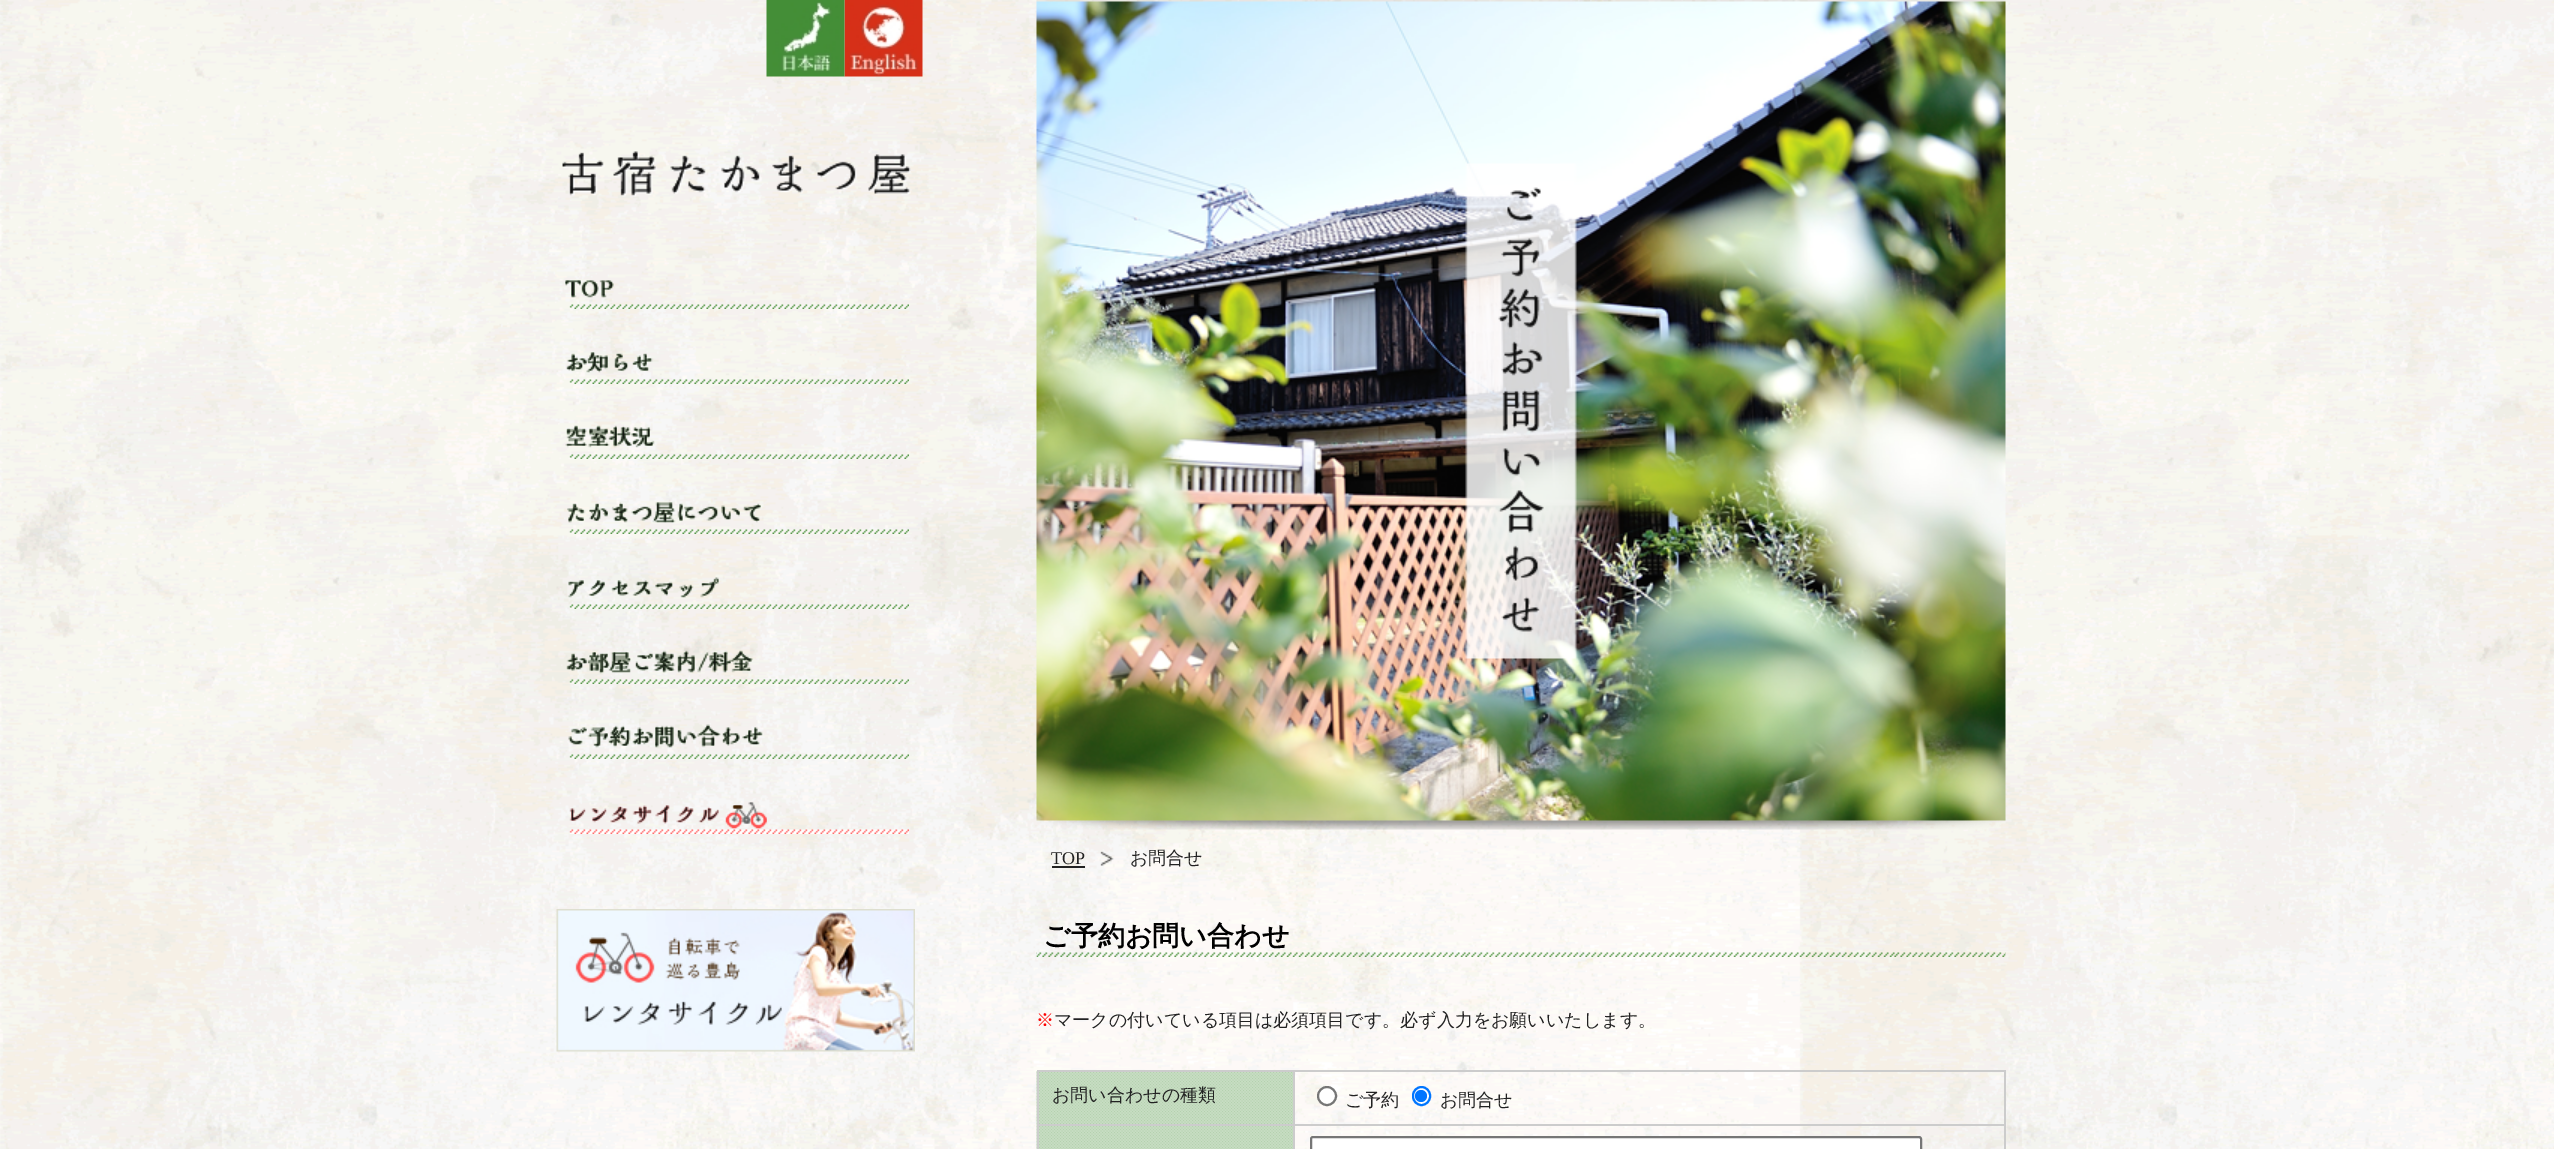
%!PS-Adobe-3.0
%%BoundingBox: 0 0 2554 1149
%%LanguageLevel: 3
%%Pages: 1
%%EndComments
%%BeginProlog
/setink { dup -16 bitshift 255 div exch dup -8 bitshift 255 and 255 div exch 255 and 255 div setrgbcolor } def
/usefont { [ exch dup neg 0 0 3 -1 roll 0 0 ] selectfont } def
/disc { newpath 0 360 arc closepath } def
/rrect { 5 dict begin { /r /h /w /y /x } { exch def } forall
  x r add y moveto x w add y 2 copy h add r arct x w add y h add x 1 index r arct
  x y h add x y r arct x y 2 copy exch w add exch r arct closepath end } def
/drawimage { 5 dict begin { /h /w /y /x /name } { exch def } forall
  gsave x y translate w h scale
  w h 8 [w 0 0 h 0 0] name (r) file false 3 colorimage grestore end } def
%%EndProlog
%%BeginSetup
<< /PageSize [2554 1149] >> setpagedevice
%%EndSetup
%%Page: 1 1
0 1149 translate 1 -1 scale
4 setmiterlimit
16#FFFFFF setink
0 0 2554 1149 rectfill
(img1.raw) 0 0 2554 1149 drawimage
(img3.raw) 844 0 79 77 drawimage
(img2.raw) 766 0 79 77 drawimage
(img4.raw) 562 151 349 46 drawimage
(img5.raw) 565 280 344 29 drawimage
(img6.raw) 565 280 49 18 drawimage
(img7.raw) 566 352 343 32 drawimage
(img8.raw) 566 352 87 21 drawimage
(img9.raw) 565 425 344 34 drawimage
(img10.raw) 565 425 90 23 drawimage
(img11.raw) 567 502 342 32 drawimage
(img12.raw) 567 502 194 21 drawimage
(img13.raw) 568 577 341 32 drawimage
(img14.raw) 568 577 151 21 drawimage
(img15.raw) 566 650 343 34 drawimage
(img16.raw) 566 650 187 24 drawimage
(img17.raw) 568 724 341 35 drawimage
(img18.raw) 568 724 195 24 drawimage
(img19.raw) 569 802 340 32 drawimage
(img20.raw) 569 802 198 27 drawimage
(img21.raw) 556 909 359 143 drawimage
(img22.raw) 1036 0 970 830 drawimage
/LiberationSerif-Regular 18 usefont
16#222222 setink
1051 864 moveto (TOP) show
1052 866 33 2 rectfill
(img23.raw) 1100 851 14 15 drawimage
/WenQuanYiZenHei-Medium 18 usefont
1130 864 moveto (お問合せ) show
(img24.raw) 1036 952 970 5 drawimage
/WenQuanYiZenHei-Bold 27 usefont
16#000000 setink
1043 945 moveto (ご予約お問い合わせ) show
/WenQuanYiZenHei-Medium 18 usefont
16#FF0000 setink
1036 1026 moveto (※) show
16#222222 setink
1054 1026 moveto (マークの付いている項目は必須項目です。必ず入力をお願いいたします。) show
(img25.raw) 1036 1071 257 54 drawimage
16#CCCCCC setink
1293 1070 713 2 rectfill
(img26.raw) 1036 1125 257 24 drawimage
[
    [1293 1124 713 2 16#CCCCCC]
    [1293 1124 2 25 16#CCCCCC]
    [1037 1124 258 2 16#CCCCCC]
    [1293 1070 2 55 16#CCCCCC]
    [1037 1070 258 2 16#CCCCCC]
    [1037 1124 2 25 16#CCCCCC]
    [1037 1070 2 55 16#CCCCCC]
] { aload pop setink rectfill } forall
16#222222 setink
1052 1101 moveto (お問い合わせの種類) show
16#CCCCCC setink
2004 1124 2 25 rectfill
2004 1070 2 55 rectfill
16#FFFFFF setink
1327 1096 9 disc gsave fill grestore
16#767676 setink
2 setlinewidth
stroke
16#222222 setink
1345 1106 moveto (ご予約) show
16#FFFFFF setink
1413 1087 17 18 8.5 rrect gsave fill grestore
16#0075FF setink
stroke
1421 1096 6 disc fill
16#222222 setink
1440 1106 moveto (お問合せ) show
16#FFFFFF setink
1311 1137 610 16 2 rrect gsave fill grestore
16#767676 setink
stroke
showpage
%%EOF
